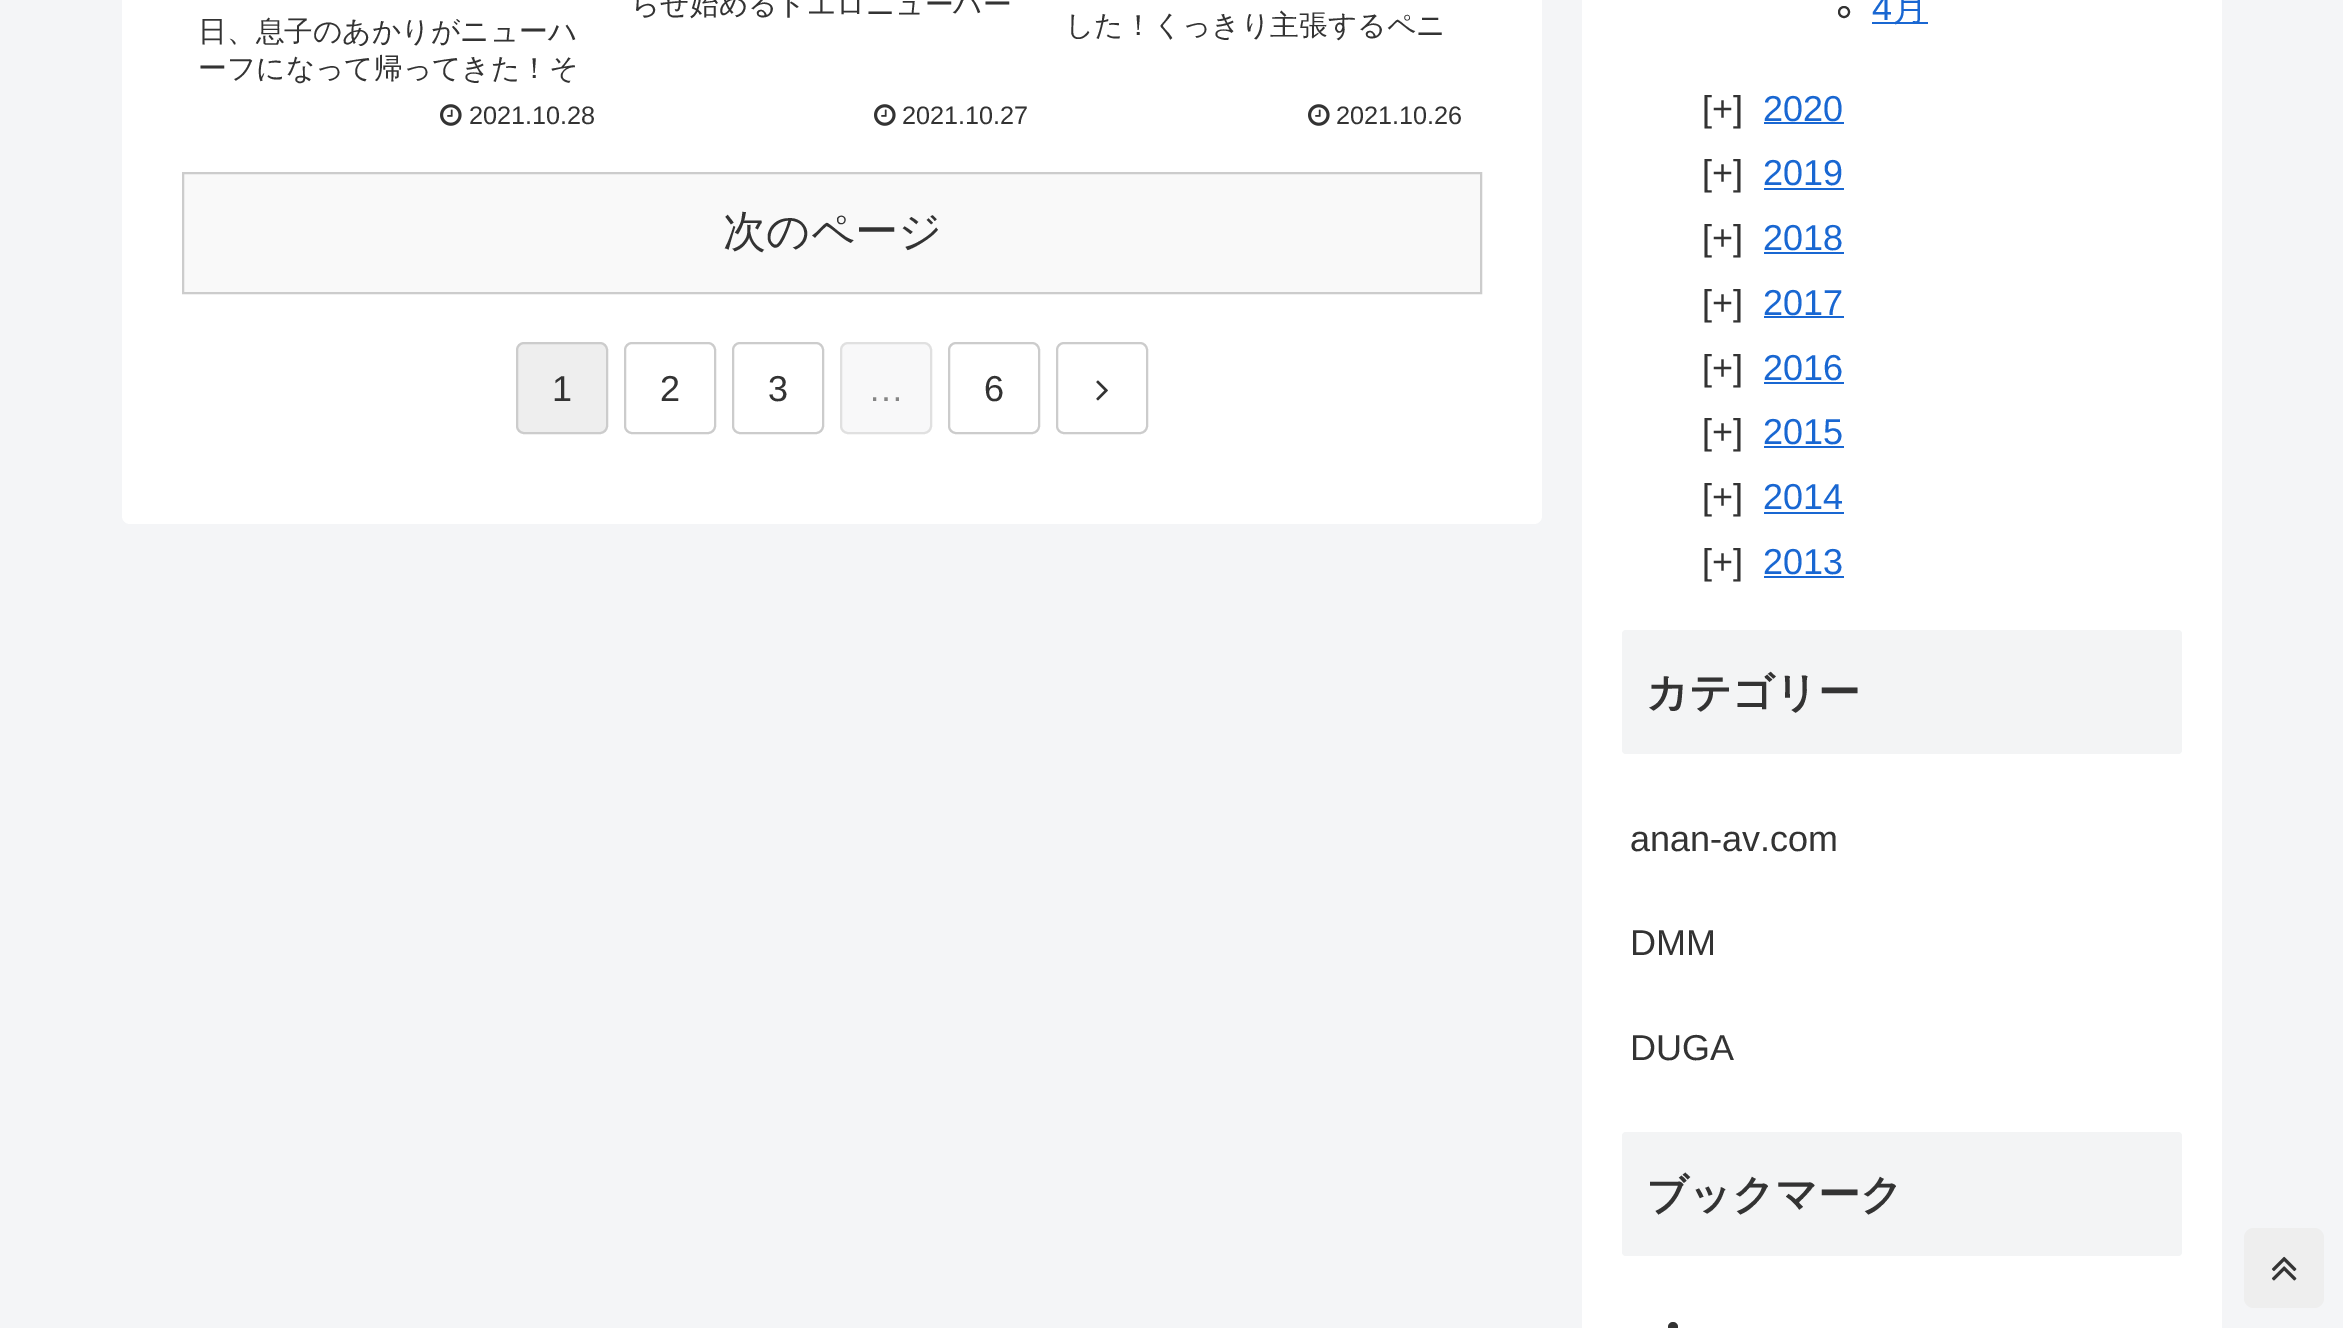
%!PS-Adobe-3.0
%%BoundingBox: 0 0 2343 1328
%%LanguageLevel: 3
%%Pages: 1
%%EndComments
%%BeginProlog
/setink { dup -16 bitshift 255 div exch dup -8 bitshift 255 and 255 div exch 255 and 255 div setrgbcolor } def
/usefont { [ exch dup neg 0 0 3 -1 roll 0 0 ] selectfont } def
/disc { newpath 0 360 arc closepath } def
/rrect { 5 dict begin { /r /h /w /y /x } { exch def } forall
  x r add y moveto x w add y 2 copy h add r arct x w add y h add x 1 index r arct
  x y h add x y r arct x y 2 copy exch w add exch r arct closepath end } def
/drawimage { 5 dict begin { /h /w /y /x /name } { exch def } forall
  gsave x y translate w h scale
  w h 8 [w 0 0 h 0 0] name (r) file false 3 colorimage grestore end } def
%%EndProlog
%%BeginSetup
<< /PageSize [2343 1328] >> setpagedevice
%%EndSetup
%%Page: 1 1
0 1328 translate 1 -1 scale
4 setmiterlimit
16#F4F5F7 setink
0 0 2343 1328 rectfill
16#FFFFFF setink
122 -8 1420 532 8 rrect fill
/WenQuanYiZenHei-Medium 28.75 usefont
16#333333 setink
198 41 moveto (日、息子のあかりがニューハ) show
198 78 moveto (ーフになって帰ってきた！そ) show
(img1.raw) 440 104 22 22 drawimage
/LiberationSans-Regular 25.25 usefont
469 124 moveto (2021.10.28) show
/WenQuanYiZenHei-Medium 28.75 usefont
631 14 moveto (らせ始めるドエロニューハー) show
(img1.raw) 874 104 22 22 drawimage
/LiberationSans-Regular 25.25 usefont
902 124 moveto (2021.10.27) show
/WenQuanYiZenHei-Medium 28.75 usefont
1065 35 moveto (した！くっきり主張するペニ) show
(img1.raw) 1308 104 22 22 drawimage
/LiberationSans-Regular 25.25 usefont
1336 124 moveto (2021.10.26) show
16#F9F9F9 setink
183 173 moveto 1481 173 lineto 1481 293 lineto 183 293 lineto closepath gsave fill grestore
16#CCCCCC setink
2 setlinewidth
stroke
/WenQuanYiZenHei-Medium 43.25 usefont
16#333333 setink
723 246 moveto (次のページ) show
16#EEEEEE setink
517 343 90 90 7 rrect gsave fill grestore
16#CCCCCC setink
stroke
/LiberationSans-Regular 36 usefont
16#333333 setink
552 401 moveto (1) show
16#CCCCCC setink
625 343 90 90 7 rrect stroke
16#333333 setink
660 401 moveto (2) show
16#CCCCCC setink
733 343 90 90 7 rrect stroke
16#333333 setink
768 401 moveto (3) show
16#F8F8F9 setink
841 343 90 90 7 rrect gsave fill grestore
16#E0E0E0 setink
stroke
16#858585 setink
868 401 moveto (…) show
16#CCCCCC setink
949 343 90 90 7 rrect stroke
16#333333 setink
984 401 moveto (6) show
16#CCCCCC setink
1057 343 90 90 7 rrect stroke
(img2.raw) 1096 380 12 21 drawimage
16#FFFFFF setink
1582 0 640 1328 rectfill
16#333333 setink
1844 12 5 disc stroke
16#1967D2 setink
1872 20 moveto (4) show
1872 22 56 2 rectfill
/WenQuanYiZenHei-Medium 36 usefont
1892 20 moveto (月) show
/LiberationSans-Regular 36 usefont
16#333333 setink
1702 121 moveto ([+]) show
16#1967D2 setink
1763 121 moveto (2020) show
1764 122 80 2 rectfill
16#333333 setink
1702 185 moveto ([+]) show
16#1967D2 setink
1763 185 moveto (2019) show
1764 188 80 2 rectfill
16#333333 setink
1702 250 moveto ([+]) show
16#1967D2 setink
1763 250 moveto (2018) show
1764 252 80 2 rectfill
16#333333 setink
1702 315 moveto ([+]) show
16#1967D2 setink
1763 315 moveto (2017) show
1764 316 80 2 rectfill
16#333333 setink
1702 380 moveto ([+]) show
16#1967D2 setink
1763 380 moveto (2016) show
1764 382 80 2 rectfill
16#333333 setink
1702 444 moveto ([+]) show
16#1967D2 setink
1763 444 moveto (2015) show
1764 446 80 2 rectfill
16#333333 setink
1702 509 moveto ([+]) show
16#1967D2 setink
1763 509 moveto (2014) show
1764 512 80 2 rectfill
16#333333 setink
1702 574 moveto ([+]) show
16#1967D2 setink
1763 574 moveto (2013) show
1764 576 80 2 rectfill
16#F3F4F5 setink
1622 630 560 124 4 rrect fill
/WenQuanYiZenHei-Bold 42 usefont
16#333333 setink
1646 707 moveto (カテゴリー) show
/LiberationSans-Regular 36 usefont
[
    [(anan-av.com) 1630 851]
    [(DMM) 1630 955]
    [(DUGA) 1630 1060]
] { aload pop moveto show } forall
16#F3F4F5 setink
1622 1132 560 124 4 rrect fill
/WenQuanYiZenHei-Bold 42 usefont
16#333333 setink
1646 1209 moveto (ブックマーク) show
1673 1327 5 disc fill
16#EEEEEE setink
2244 1228 80 80 10 rrect fill
(img3.raw) 2271 1256 26 25 drawimage
showpage
%%EOF
